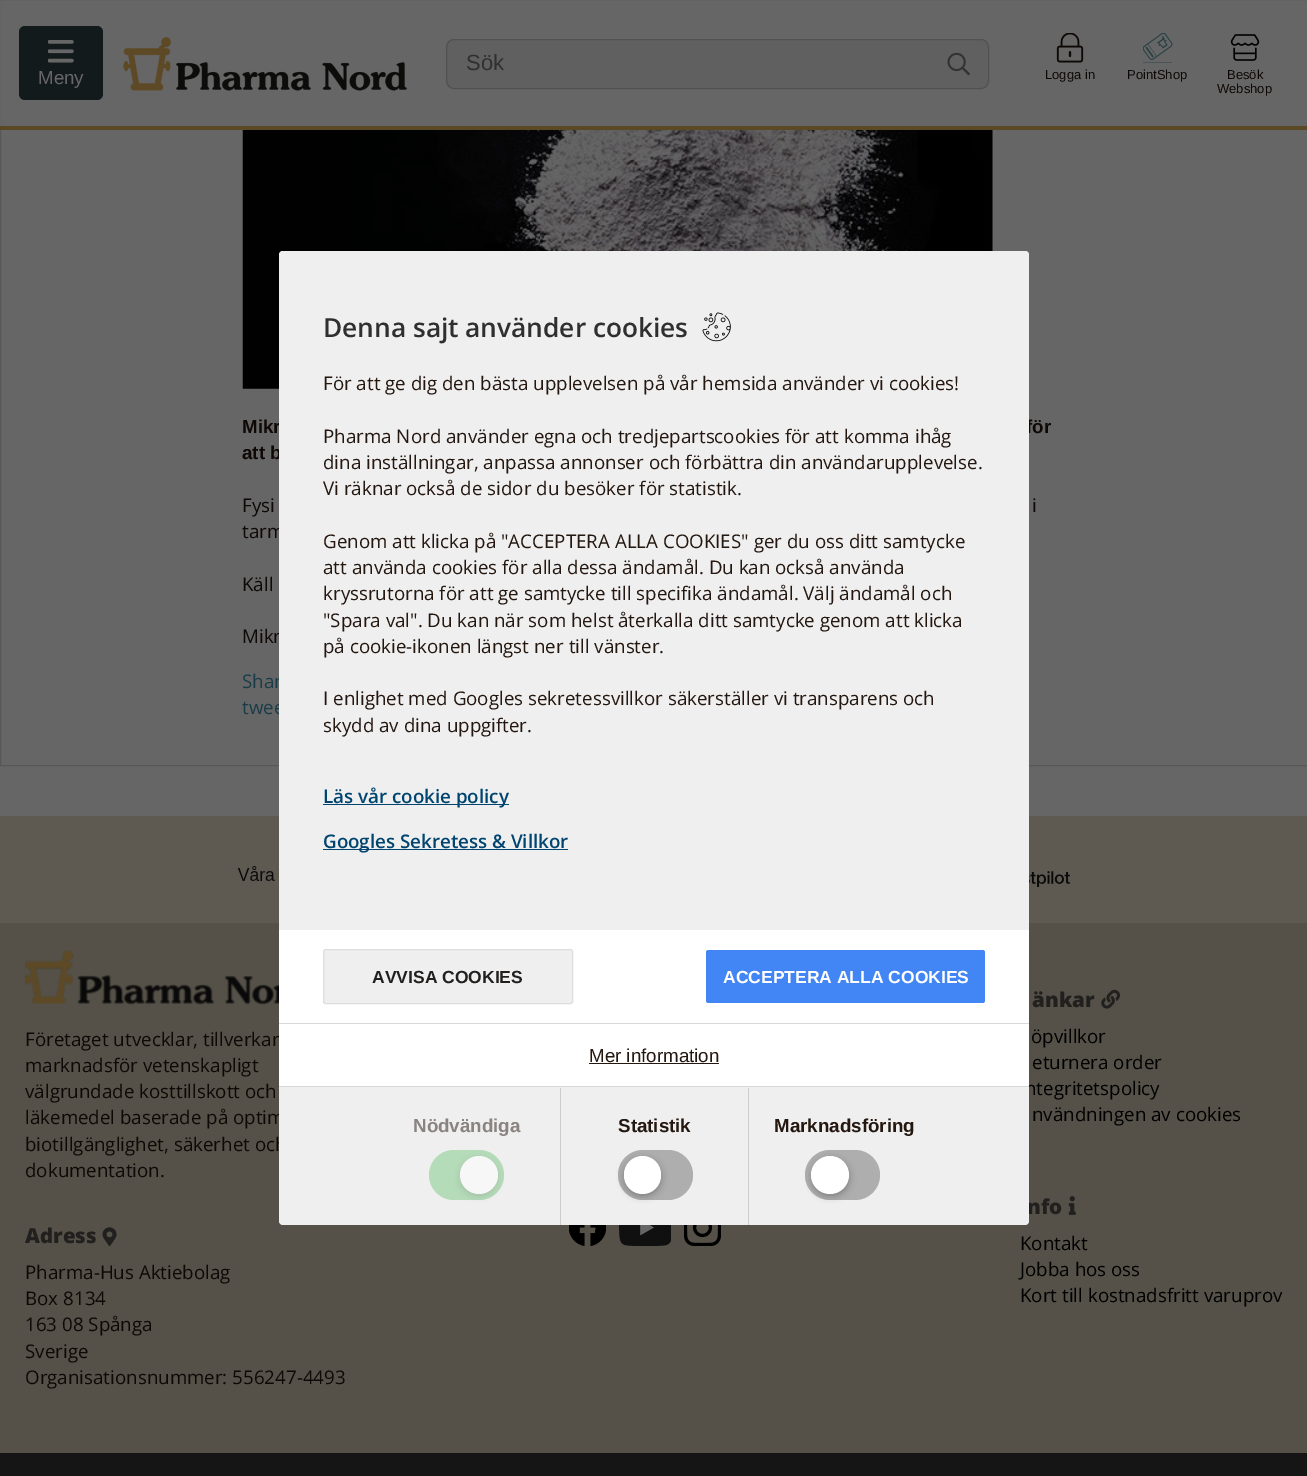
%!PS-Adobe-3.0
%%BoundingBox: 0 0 1307 1476
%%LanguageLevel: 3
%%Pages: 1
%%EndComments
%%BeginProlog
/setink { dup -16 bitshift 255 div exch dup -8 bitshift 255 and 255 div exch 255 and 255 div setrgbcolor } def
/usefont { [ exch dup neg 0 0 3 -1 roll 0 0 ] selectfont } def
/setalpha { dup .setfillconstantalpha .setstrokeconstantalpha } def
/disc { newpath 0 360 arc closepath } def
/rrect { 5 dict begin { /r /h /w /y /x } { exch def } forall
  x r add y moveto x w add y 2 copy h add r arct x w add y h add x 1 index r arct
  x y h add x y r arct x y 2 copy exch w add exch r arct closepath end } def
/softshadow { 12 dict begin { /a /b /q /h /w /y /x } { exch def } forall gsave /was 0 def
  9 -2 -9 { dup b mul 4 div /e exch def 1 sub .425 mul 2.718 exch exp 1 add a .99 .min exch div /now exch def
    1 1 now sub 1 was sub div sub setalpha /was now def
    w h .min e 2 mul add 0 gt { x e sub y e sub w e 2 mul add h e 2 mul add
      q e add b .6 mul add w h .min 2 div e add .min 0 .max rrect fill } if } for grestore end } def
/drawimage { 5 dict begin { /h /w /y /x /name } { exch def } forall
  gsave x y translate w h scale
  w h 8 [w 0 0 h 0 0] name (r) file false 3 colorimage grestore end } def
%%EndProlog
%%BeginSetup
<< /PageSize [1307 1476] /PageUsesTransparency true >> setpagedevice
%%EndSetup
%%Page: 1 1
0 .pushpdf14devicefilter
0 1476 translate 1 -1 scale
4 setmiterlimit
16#666666 setink
0 0 1307 1476 rectfill
16#585858 setink
0.5 -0.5 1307 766 rectstroke
16#666666 setink
0 0 1 126 rectfill
16#5B4923 setink
0 126 1307 4 rectfill
16#606060 setink
446.5 39.5 542 49 7.5 rrect gsave fill grestore
16#515151 setink
stroke
/LiberationSans-Regular 22 usefont
16#2F2F2F setink
466 70 moveto (Sök) show
(img1.raw) 947 52 23 24 drawimage
16#131A1C setink
19 26 84 74 6 rrect fill
(img2.raw) 48 40 26 23 drawimage
/LiberationSans-Regular 18.75 usefont
16#666666 setink
38 84 moveto (Meny) show
(img3.raw) 123 37 285 54 drawimage
(img4.raw) 1056 33 28 30 drawimage
/LiberationSans-Regular 13 usefont
16#0E0906 setink
1045 79 moveto (Logga in) show
(img5.raw) 1143 33 30 30 drawimage
1127 79 moveto (PointShop) show
(img6.raw) 1230 34 30 27 drawimage
1227 79 moveto (Besök) show
1217 93 moveto (Webshop) show
(img7.raw) 242 130 751 259 drawimage
/LiberationSans-Bold 18.75 usefont
[
    [(Mikr) 242 433]
    [(för) 1026 433]
    [(att b) 242 459]
] { aload pop moveto show } forall
/OpenSans-Regular 18.75 usefont
[
    [(Fysi) 242 512]
    [(i) 1032 512]
    [(tarm) 242 538]
    [(Käll) 242 591]
    [(Mikr) 242 643]
] { aload pop moveto show } forall
16#193C48 setink
242 688 moveto (Shar) show
242 714 moveto (twee) show
16#5E5A52 setink
0 816 1307 107 rectfill
(img8.raw) 237 866 833 21 drawimage
16#555148 setink
0 923 1307 530 rectfill
(img9.raw) 25 950 254 55 drawimage
16#0E0906 setink
[
    [(Företaget utvecklar, tillverkar) 25 1046]
    [(marknadsför vetenskapligt) 25 1072]
    [(välgrundade kosttillskott och) 25 1098]
    [(läkemedel baserade på optim) 25 1124]
    [(biotillgänglighet, säkerhet och) 25 1151]
    [(dokumentation.) 25 1177]
] { aload pop moveto show } forall
/OpenSans-ExtraBold 20.5 usefont
16#21201F setink
25 1243 moveto (Adress) show
(img10.raw) 102 1227 15 20 drawimage
/OpenSans-Regular 18.75 usefont
16#0E0906 setink
[
    [(Pharma-Hus Aktiebolag) 25 1279]
    [(Box 8134) 25 1305]
    [(163 08 Spånga) 25 1331]
    [(Sverige) 25 1358]
    [(Organisationsnummer: 556247-4493) 25 1384]
] { aload pop moveto show } forall
(img11.raw) 569 1225 37 21 drawimage
(img12.raw) 619 1225 52 21 drawimage
(img13.raw) 684 1225 37 21 drawimage
/OpenSans-ExtraBold 20.5 usefont
16#21201F setink
1032 1007 moveto (änkar) show
(img14.raw) 1101 989 19 20 drawimage
/OpenSans-Regular 18.75 usefont
16#000000 setink
[
    [(öpvillkor) 1031 1043]
    [(eturnera order) 1032 1069]
    [(ntegritetspolicy) 1025 1095]
    [(nvändningen av cookies) 1032 1121]
] { aload pop moveto show } forall
/OpenSans-ExtraBold 20.5 usefont
16#21201F setink
1027 1214 moveto (nfo) show
(img15.raw) 1068 1196 8 19 drawimage
/OpenSans-Regular 18.75 usefont
16#000000 setink
[
    [(Kontakt) 1020 1250]
    [(Jobba hos oss) 1020 1276]
    [(Kort till kostnadsfritt varuprov) 1020 1302]
] { aload pop moveto show } forall
16#151515 setink
0 1453 1307 23 rectfill
16#EFEFEF setink
279 251 750 974 4 rrect fill
283 251 moveto 1025 251 lineto 1027 251 1029 253 1029 255 curveto 1029 855 lineto 279 855 lineto 279 255 lineto 279 253 281 251 283 251 curveto closepath fill
/OpenSans-SemiBold 26.25 usefont
16#2F2F2F setink
323 337 moveto (Denna sajt använder cookies) show
(img16.raw) 702 312 29 30 drawimage
/OpenSans-Regular 18.75 usefont
16#241710 setink
[
    [(För att ge dig den bästa upplevelsen på vår hemsida använder vi cookies!) 323 390]
    [(Pharma Nord använder egna och tredjepartscookies för att komma ihåg) 323 443]
    [(dina inställningar, anpassa annonser och förbättra din användarupplevelse.) 323 469]
    [(Vi räknar också de sidor du besöker för statistik.) 323 495]
    [(Genom att klicka på "ACCEPTERA ALLA COOKIES" ger du oss ditt samtycke) 323 548]
    [(att använda cookies för alla dessa ändamål. Du kan också använda) 323 574]
    [(kryssrutorna för att ge samtycke till specifika ändamål. Välj ändamål och) 323 600]
    [("Spara val". Du kan när som helst återkalla ditt samtycke genom att klicka) 323 627]
    [(på cookie-ikonen längst ner till vänster.) 323 653]
    [(I enlighet med Googles sekretessvillkor säkerställer vi transparens och) 323 705]
    [(skydd av dina uppgifter.) 323 732]
] { aload pop moveto show } forall
16#004570 setink
323 804 186 1 rectfill
/OpenSans-SemiBold 18.75 usefont
323 803 moveto (Läs vår cookie policy) show
323 849 245 1 rectfill
323 848 moveto (Googles Sekretess & Villkor) show
16#FFFFFF setink
279 930 750 93 rectfill
16#F0EFEF setink
323.5 949.5 249 54 2 rrect gsave fill grestore
16#DDDDDD setink
stroke
/LiberationSans-Bold 17.5 usefont
16#21201F setink
372 983 moveto (AVVISA COOKIES) show
16#4285F4 setink
706 950 279 53 2.5 rrect fill
16#FFFFFF setink
723 983 moveto (ACCEPTERA ALLA COOKIES) show
279 1024 750 62 rectfill
16#D8D8D8 setink
279 1023 750 1 rectfill
/LiberationSans-Regular 18.75 usefont
16#241710 setink
589 1062 moveto (Mer information) show
589 1063 130 1 rectfill
16#D8D8D8 setink
279 1086 750 1 rectfill
/LiberationSans-Bold 18.75 usefont
16#8A8380 setink
413 1132 moveto (Nödvändiga) show
16#B5DCB9 setink
429 1150 75 50 25 rrect fill
16#787878 setink
461 1160 35 35 17.5 4 0.35 softshadow
16#F7F7F7 setink
479 1175 19 disc fill
16#CCCCCC setink
560 1088 1 137 rectfill
16#241710 setink
618 1132 moveto (Statistik) show
16#AFAEAE setink
618 1150 75 50 25 rrect fill
16#000000 setink
625 1160 35 35 17.5 4 0.35 softshadow
16#FFFFFF setink
624 1156 37 38 18.5 rrect fill
16#CCCCCC setink
748 1088 1 137 rectfill
16#241710 setink
774 1132 moveto (Marknadsföring) show
16#AFAEAE setink
805 1150 75 50 25 rrect fill
16#000000 setink
813 1160 35 35 17.5 4 0.35 softshadow
16#FFFFFF setink
830 1175 19 disc fill
.poppdf14devicefilter showpage
%%EOF
